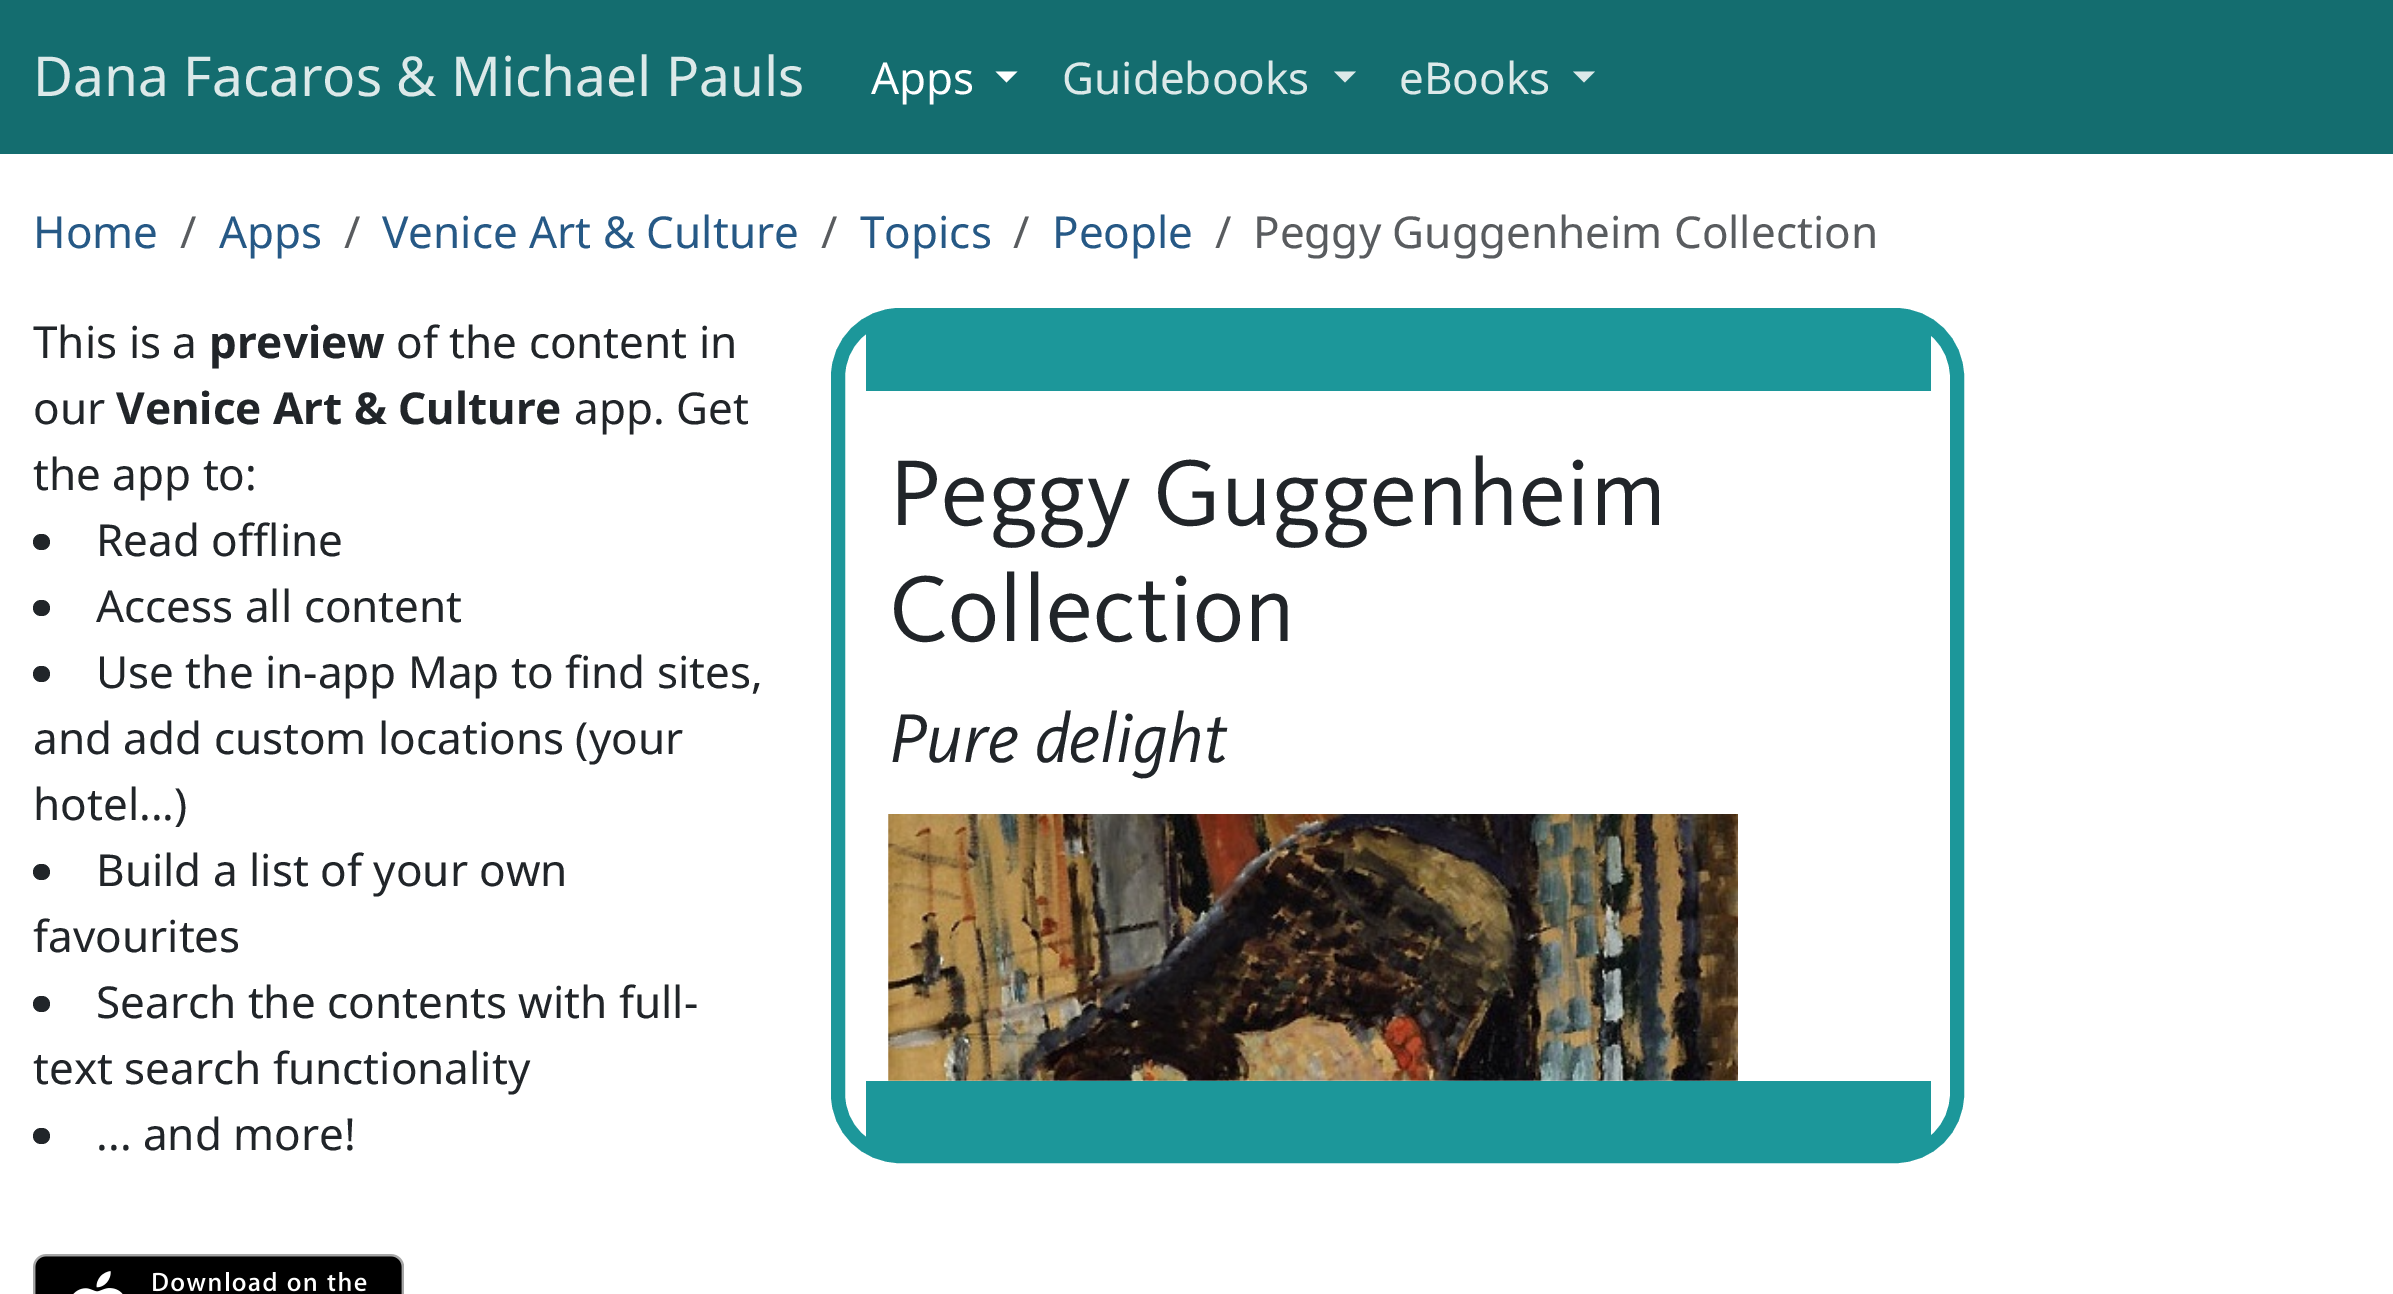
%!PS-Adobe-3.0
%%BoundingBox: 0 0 2393 1294
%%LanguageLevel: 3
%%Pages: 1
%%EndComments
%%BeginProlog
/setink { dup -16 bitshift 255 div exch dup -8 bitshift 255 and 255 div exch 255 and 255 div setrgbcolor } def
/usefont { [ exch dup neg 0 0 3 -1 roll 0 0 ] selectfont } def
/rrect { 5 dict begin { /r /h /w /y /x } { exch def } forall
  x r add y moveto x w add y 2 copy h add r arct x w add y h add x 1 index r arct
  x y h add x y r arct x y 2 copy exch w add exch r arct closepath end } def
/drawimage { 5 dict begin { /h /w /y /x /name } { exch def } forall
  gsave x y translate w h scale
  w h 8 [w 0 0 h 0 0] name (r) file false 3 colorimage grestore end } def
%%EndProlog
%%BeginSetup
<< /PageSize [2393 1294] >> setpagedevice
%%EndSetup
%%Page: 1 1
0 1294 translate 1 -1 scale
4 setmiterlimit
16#FFFFFF setink
0 0 2393 1294 rectfill
16#146D6F setink
0 0 2393 154 rectfill
/NotoSans-Regular 55 usefont
16#DCE9E9 setink
33 96 moveto (Dana Facaros & Michael Pauls) show
/NotoSans-Regular 44 usefont
16#FFFFFF setink
871 94 moveto (Apps) show
995.5 71.5 moveto 1017.5 71.5 lineto 1006.5 82.5 lineto closepath fill
16#DCE9E9 setink
1062 94 moveto (Guidebooks) show
1334 71.5 moveto 1356 71.5 lineto 1345 82.5 lineto closepath fill
1399 94 moveto (eBooks) show
1573 71.5 moveto 1595 71.5 lineto 1584 82.5 lineto closepath fill
16#265986 setink
33 248 moveto (Home) show
16#595C5F setink
180 248 moveto (/) show
16#265986 setink
219 248 moveto (Apps) show
16#595C5F setink
344 248 moveto (/) show
16#265986 setink
382 248 moveto (Venice Art & Culture) show
16#595C5F setink
821 248 moveto (/) show
16#265986 setink
860 248 moveto (Topics) show
16#595C5F setink
1013 248 moveto (/) show
16#265986 setink
1052 248 moveto (People) show
16#595C5F setink
1215 248 moveto (/) show
1253 248 moveto (Peggy Guggenheim Collection) show
16#212529 setink
33 358 moveto (This is a) show
/NotoSans-Bold 44 usefont
209 358 moveto (preview) show
/NotoSans-Regular 44 usefont
396 358 moveto (of the content in) show
33 424 moveto (our) show
/NotoSans-Bold 44 usefont
116 424 moveto (Venice Art & Culture) show
/NotoSans-Regular 44 usefont
574 424 moveto (app. Get) show
33 490 moveto (the app to:) show
33 534 17 16 8 rrect fill
96 556 moveto (Read offline) show
33 600 17 16 8 rrect fill
96 622 moveto (Access all content) show
33 666 17 16 8 rrect fill
[
    [(Use the in-app Map to find sites,) 96 688]
    [(and add custom locations \(your) 33 754]
    [(hotel...\)) 33 820]
] { aload pop moveto show } forall
33 864 17 16 8 rrect fill
96 886 moveto (Build a list of your own) show
33 952 moveto (favourites) show
33 996 17 16 8 rrect fill
96 1018 moveto (Search the contents with full-) show
33 1084 moveto (text search functionality) show
33 1128 17 16 8 rrect fill
96 1150 moveto (... and more!) show
(img1.raw) 33 1254 371 40 drawimage
16#1C979A setink
14 setlinewidth
838 315 1119 841 62 rrect stroke
866 322 1065 69 rectfill
866 1081 1065 68 rectfill
/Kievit-Regular 96.5 usefont
16#212529 setink
889 525 moveto (Peggy Guggenheim) show
889 641 moveto (Collection) show
/Kievit-Italic 71.5 usefont
889 762 moveto (Pure delight) show
(img2.raw) 888 814 850 267 drawimage
showpage
%%EOF
